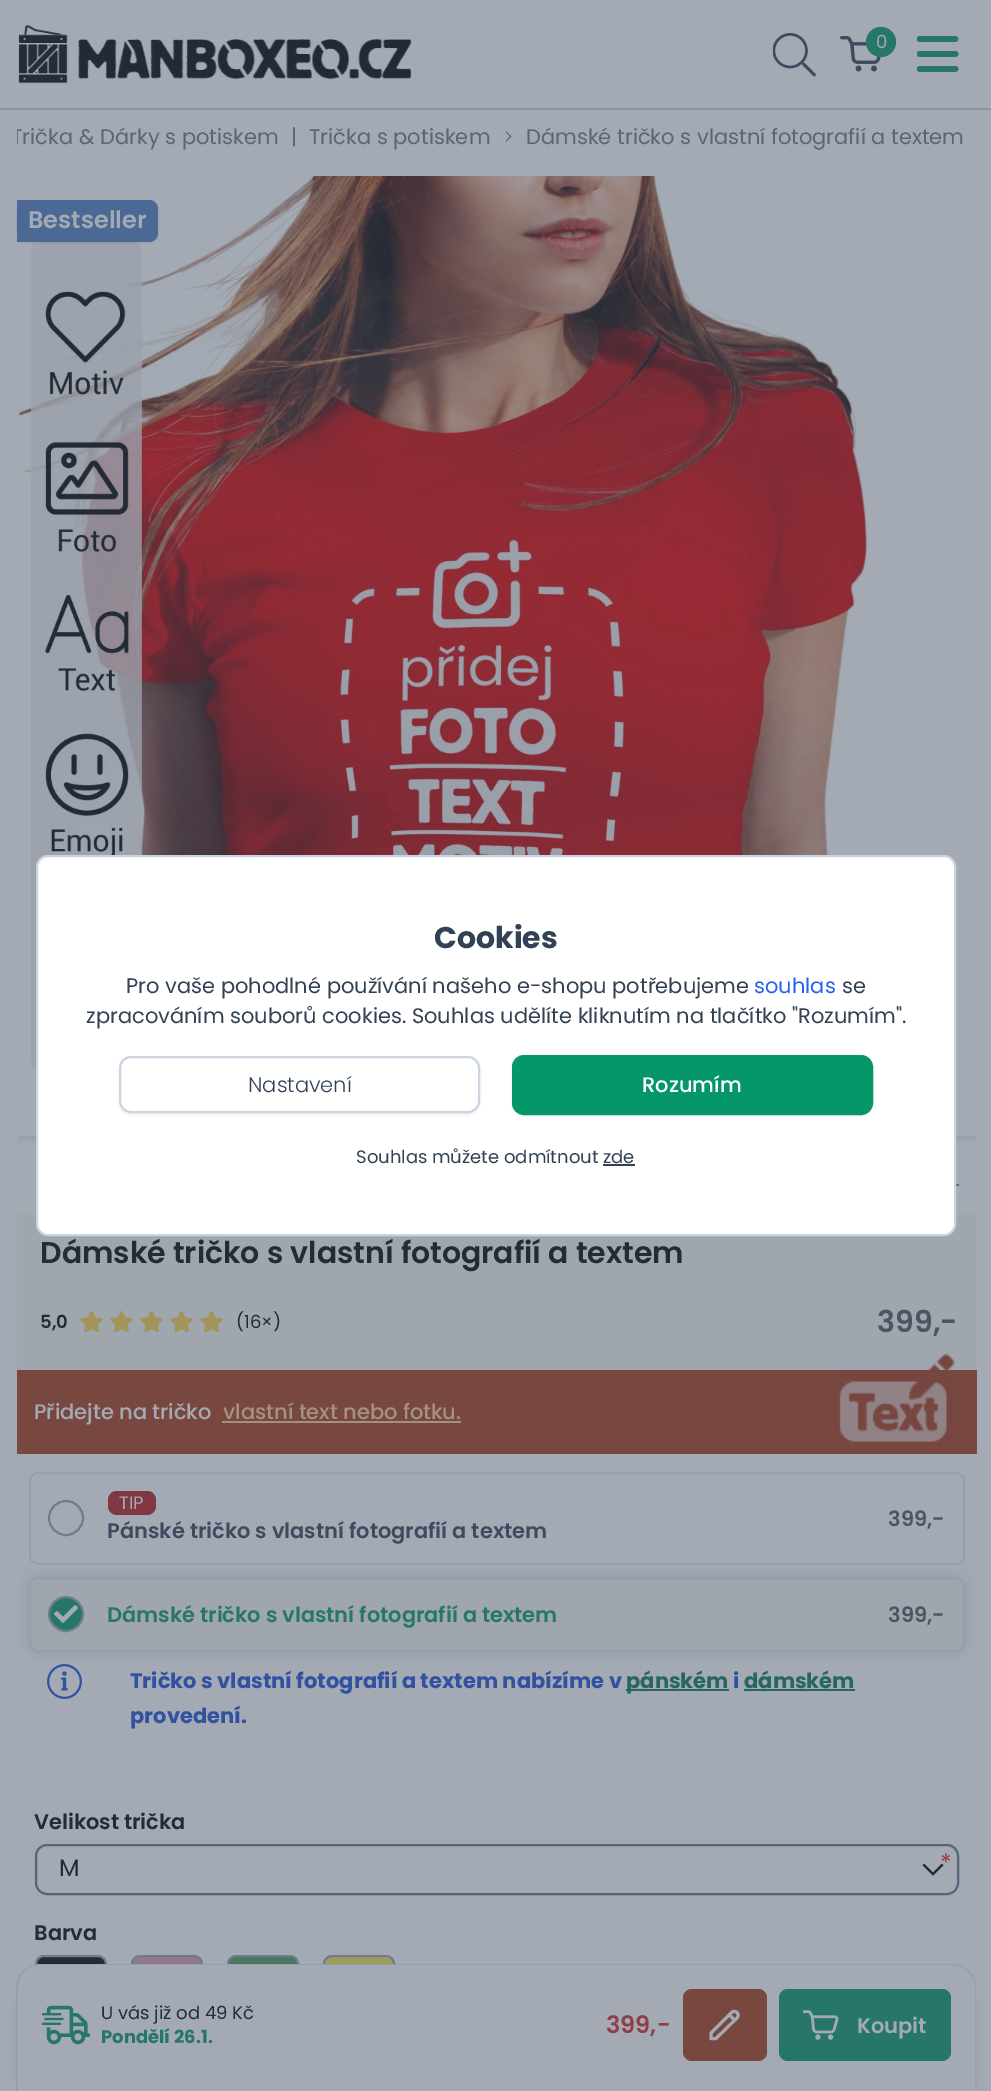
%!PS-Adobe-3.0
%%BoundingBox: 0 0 991 2091
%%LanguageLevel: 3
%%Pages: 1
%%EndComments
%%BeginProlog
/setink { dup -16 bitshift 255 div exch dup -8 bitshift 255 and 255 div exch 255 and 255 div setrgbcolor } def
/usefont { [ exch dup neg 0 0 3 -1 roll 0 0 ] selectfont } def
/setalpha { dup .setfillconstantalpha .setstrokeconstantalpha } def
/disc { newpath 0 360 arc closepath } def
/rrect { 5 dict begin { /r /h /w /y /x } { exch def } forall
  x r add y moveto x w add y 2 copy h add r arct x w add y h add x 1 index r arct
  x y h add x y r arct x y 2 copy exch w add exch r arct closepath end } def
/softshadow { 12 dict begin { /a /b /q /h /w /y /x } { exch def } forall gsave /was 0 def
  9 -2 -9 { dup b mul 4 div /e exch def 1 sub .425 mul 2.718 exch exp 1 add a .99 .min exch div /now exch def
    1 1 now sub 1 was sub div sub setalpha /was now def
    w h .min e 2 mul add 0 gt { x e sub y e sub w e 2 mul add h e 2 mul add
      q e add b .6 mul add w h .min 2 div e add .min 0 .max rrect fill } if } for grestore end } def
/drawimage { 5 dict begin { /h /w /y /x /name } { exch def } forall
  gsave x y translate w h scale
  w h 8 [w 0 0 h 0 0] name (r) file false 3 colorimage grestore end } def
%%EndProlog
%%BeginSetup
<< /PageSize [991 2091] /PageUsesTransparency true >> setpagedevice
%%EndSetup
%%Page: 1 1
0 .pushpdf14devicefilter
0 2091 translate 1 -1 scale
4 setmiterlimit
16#A3AAB4 setink
0 0 991 2091 rectfill
16#8995A5 setink
0 108 991 2 rectfill
(img1.raw) 18 25 394 59 drawimage
(img2.raw) 773 33 43 44 drawimage
(img3.raw) 840 36 41 36 drawimage
16#267669 setink
881 42 15 disc fill
/Poppins-Regular 18 usefont
16#A3AAB4 setink
876 48 moveto (0) show
(img4.raw) 917 36 42 36 drawimage
gsave
17 98 960 66 rectclip
/Poppins-Regular 21 usefont
16#5E656F setink
11 144 moveto (Trička & Dárky s potiskem) show
grestore
/Poppins-Regular 21 usefont
16#5E656F setink
291 144 moveto (|) show
309 144 moveto (Trička s potiskem) show
(img5.raw) 505 131 7 11 drawimage
526 144 moveto (Dámské tričko s vlastní fotografií a textem) show
16#242B35 setink
20 182 954 954 0 3 0.1 softshadow
gsave
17 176 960 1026 rectclip
18 183 957 957 0 4.5 0.1 softshadow
grestore
16#A3AAB4 setink
17 178 960 958 rectfill
(img6.raw) 18 176 850 960 drawimage
16#A0A6AF setink
35 1154 42 42 9 rrect fill
16#5E656F setink
956 1184 3 2 rectfill
16#242B35 setink
18 203 138 39 8 1.5 0.1 softshadow
17 201 141 42 9 2 0.1 softshadow
16#4B6994 setink
17 200 moveto 149 200 lineto 154 200 158 204 158 209 curveto 158 233 lineto 158 238 154 242 149 242 curveto 17 242 lineto closepath fill
/Poppins-SemiBold 24 usefont
16#A3AAB4 setink
28 228 moveto (Bestseller) show
16#9FA6AE setink
17 1214 960 156 rectfill
/Poppins-SemiBold 30 usefont
16#242B35 setink
40 1263 moveto (Dámské tričko s vlastní fotografií a textem) show
/Poppins-SemiBold 18 usefont
40 1328 moveto (5,0) show
(img7.raw) 80 1311 23 21 drawimage
(img7.raw) 110 1311 23 21 drawimage
(img7.raw) 140 1311 23 21 drawimage
(img7.raw) 170 1311 23 21 drawimage
(img7.raw) 200 1311 23 21 drawimage
/Poppins-Regular 18 usefont
236 1328 moveto (\(16×\)) show
/Poppins-SemiBold 30 usefont
16#4D5462 setink
877 1332 moveto (399,-) show
16#774740 setink
17 1370 960 84 rectfill
/Poppins-Medium 21 usefont
16#A3AAB4 setink
34 1419 moveto (Přidejte na tričko) show
16#A39183 setink
223 1419 moveto (vlastní text nebo fotku.) show
222 1421 239 2 rectfill
(img8.raw) 839 1353 117 89 drawimage
16#959FAD setink
2 setlinewidth
30 1473 934 91 8 rrect stroke
16#6E7C91 setink
66 1518 17 disc stroke
16#803943 setink
108 1491 48 24 9 rrect fill
/Poppins-Regular 18 usefont
16#A3AAB4 setink
119 1509 moveto (TIP) show
/Poppins-SemiBold 21 usefont
16#3D4B5F setink
107 1538 moveto (Pánské tričko s vlastní fotografií a textem) show
16#4D5462 setink
888 1526 moveto (399,-) show
16#9299A3 setink
29 1577 936 75 9 6 1 softshadow
16#9FA6AE setink
30 1578 934 73 8 rrect gsave fill grestore
16#959FAD setink
stroke
16#267669 setink
66 1614 17 disc gsave fill grestore
16#6E7C91 setink
stroke
(img9.raw) 54 1605 24 18 drawimage
16#267669 setink
107 1622 moveto (Dámské tričko s vlastní fotografií a textem) show
16#4D5462 setink
888 1622 moveto (399,-) show
(img10.raw) 47 1664 35 35 drawimage
/Poppins-Bold 21 usefont
16#3252A1 setink
130 1688 moveto (Tričko s vlastní fotografií a textem nabízíme v) show
16#26685F setink
626 1689 103 2 rectfill
626 1688 moveto (pánském) show
16#3252A1 setink
733 1688 moveto (i) show
16#26685F setink
744 1688 moveto (dámském) show
744 1689 111 2 rectfill
16#3252A1 setink
130 1723 moveto (provedení.) show
/Poppins-SemiBold 21 usefont
16#242B35 setink
34 1829 moveto (Velikost trička) show
16#56657A setink
36 1845 922 49 11 rrect stroke
/Poppins-Regular 24 usefont
16#923E48 setink
940 1871 moveto (*) show
16#242B35 setink
59 1876 moveto (M) show
(img11.raw) 922 1863 22 13 drawimage
/Poppins-SemiBold 21 usefont
34 1940 moveto (Barva) show
36 1956 70 40 8 rrect gsave fill grestore
16#6E7C91 setink
stroke
16#91778F setink
132 1956 70 40 8 rrect gsave fill grestore
16#6E7C91 setink
stroke
16#467862 setink
228 1956 70 40 8 rrect gsave fill grestore
16#6E7C91 setink
stroke
16#9E9F56 setink
324 1956 70 40 8 rrect gsave fill grestore
16#6E7C91 setink
stroke
16#9FA6AE setink
976 2027 1 64 rectfill
16#242B35 setink
21 1983 951 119 20 11 0.1 softshadow
16#A3AAB4 setink
41 1965 moveto 952 1965 lineto 964.5 1965 975 1975.5 975 1988 curveto 975 2091 lineto 18 2091 lineto 18 1988 lineto 18 1975.5 28.5 1965 41 1965 curveto closepath fill
16#959FAD setink
40 1964 moveto 952 1964 lineto 966 1964 976 1974 976 1988 curveto 976 2091 lineto 16 2091 lineto 16 1988 lineto 16 1974 27 1964 40 1964 curveto closepath 40 1965 moveto 952 1965 lineto 965 1965 975 1975 975 1988 curveto 975 2091 lineto 18 2091 lineto 18 1988 lineto 18 1975 28 1965 40 1965 curveto closepath eofill
(img12.raw) 42 2005 48 40 drawimage
/Poppins-Regular 18 usefont
16#242B35 setink
101 2019 moveto (U vás již od 49 Kč) show
/Poppins-Bold 18 usefont
16#267669 setink
101 2043 moveto (Pondělí 26.1.) show
/Poppins-SemiBold 24 usefont
16#923E48 setink
606 2033 moveto (399,-) show
16#774740 setink
683 1989 84 72 9 rrect fill
16#A3AAB4 setink
3 setlinewidth
1 setlinecap
1 setlinejoin
729.5 2015 moveto 734.5 2020 lineto 731.5 2012.5 moveto 733 2011 735.5 2011 737 2012.5 curveto 738.5 2014 738.5 2016.5 737 2018 curveto 716 2038.5 lineto 711 2038.5 lineto 711 2033 lineto closepath stroke
16#267669 setink
779 1989 172 72 9 rrect fill
(img13.raw) 803 2010 36 30 drawimage
/Poppins-SemiBold 21 usefont
16#A3AAB4 setink
857 2033 moveto (Koupit) show
16#FFFFFF setink
37 856 918 379 11 rrect gsave fill grestore
16#CBD5E1 setink
2 setlinewidth
0 setlinecap
0 setlinejoin
stroke
/Poppins-Bold 30 usefont
16#334155 setink
434 948 moveto (Cookies) show
/Poppins-Regular 21 usefont
126 993 moveto (Pro vaše pohodlné používání našeho e-shopu potřebujeme) show
16#2563EB setink
754 993 moveto (souhlas) show
16#334155 setink
842 993 moveto (se) show
86 1023 moveto (zpracováním souborů cookies. Souhlas udělíte kliknutím na tlačítko "Rozumím".) show
16#000000 setink
119 1058 361 57 12 1.5 0.05 softshadow
16#FFFFFF setink
120 1057 359 55 11 rrect gsave fill grestore
16#CBD5E1 setink
stroke
/Poppins-Light 21 usefont
16#334155 setink
248 1092 moveto (Nastavení) show
16#000000 setink
512 1056 361 60 12 1.5 0.05 softshadow
16#059669 setink
513.5 1056.5 358 57 10.5 rrect gsave fill grestore
3 setlinewidth
stroke
/Poppins-Medium 21 usefont
16#FFFFFF setink
642 1092 moveto (Rozumím) show
/Poppins-Regular 18 usefont
16#334155 setink
356 1163 moveto (Souhlas můžete odmítnout zde) show
603 1164 32 2 rectfill
.poppdf14devicefilter showpage
%%EOF
